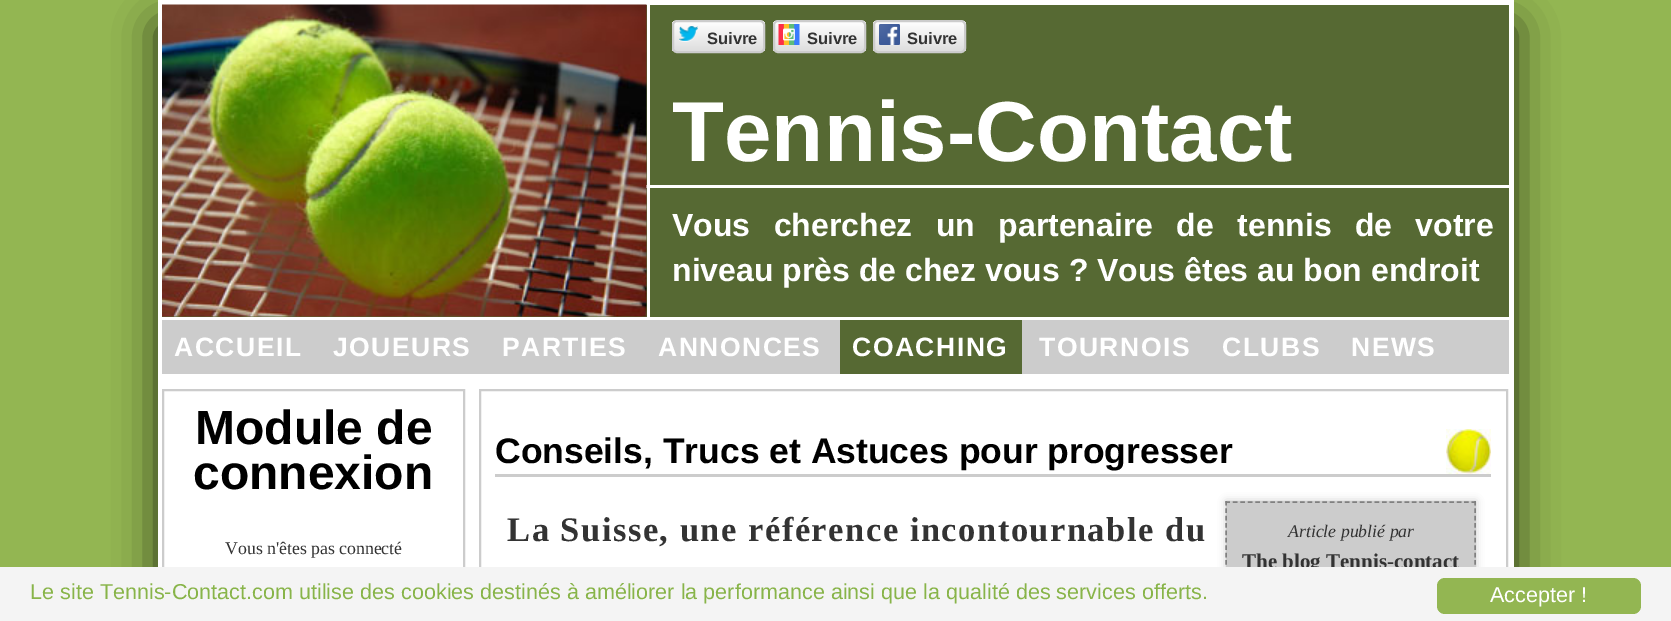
%!PS-Adobe-3.0
%%BoundingBox: 0 0 1671 621
%%LanguageLevel: 3
%%Pages: 1
%%EndComments
%%BeginProlog
/setink { dup -16 bitshift 255 div exch dup -8 bitshift 255 and 255 div exch 255 and 255 div setrgbcolor } def
/usefont { [ exch dup neg 0 0 3 -1 roll 0 0 ] selectfont } def
/setalpha { dup .setfillconstantalpha .setstrokeconstantalpha } def
/rrect { 5 dict begin { /r /h /w /y /x } { exch def } forall
  x r add y moveto x w add y 2 copy h add r arct x w add y h add x 1 index r arct
  x y h add x y r arct x y 2 copy exch w add exch r arct closepath end } def
/softshadow { 12 dict begin { /a /b /q /h /w /y /x } { exch def } forall gsave /was 0 def
  9 -2 -9 { dup b mul 4 div /e exch def 1 sub .425 mul 2.718 exch exp 1 add a .99 .min exch div /now exch def
    1 1 now sub 1 was sub div sub setalpha /was now def
    w h .min e 2 mul add 0 gt { x e sub y e sub w e 2 mul add h e 2 mul add
      q e add b .6 mul add w h .min 2 div e add .min 0 .max rrect fill } if } for grestore end } def
/drawimage { 5 dict begin { /h /w /y /x /name } { exch def } forall
  gsave x y translate w h scale
  w h 8 [w 0 0 h 0 0] name (r) file false 3 colorimage grestore end } def
%%EndProlog
%%BeginSetup
<< /PageSize [1671 621] /PageUsesTransparency true >> setpagedevice
%%EndSetup
%%Page: 1 1
0 .pushpdf14devicefilter
0 621 translate 1 -1 scale
4 setmiterlimit
16#93B652 setink
0 0 1671 621 rectfill
16#000000 setink
158 26 1356 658 0 21 0.75 softshadow
[
    [158 0 1356 567 16#FFFFFF]
    [162 5 1347 312 16#566933]
    [646 185 863 3 16#FFFFFF]
    [647 5 3 312 16#FFFFFF]
] { aload pop setink rectfill } forall
(img1.raw) 162 4 485 313 drawimage
gsave
672 20 93 33 5 rrect clip newpath
gsave 672 21 moveto 765 21 lineto 765 51 lineto 672 51 lineto closepath clip newpath
<< /ShadingType 2 /ColorSpace /DeviceRGB /Coords [719 21 719 51] /Extend [true true] /Function << /FunctionType 2 /Domain [0 1] /C0 [1 1 1] /C1 [0.871 0.871 0.871] /N 1 >> >> shfill grestore
grestore
16#CCCCCC setink
2 setlinewidth
673 21 91 31 4 rrect stroke
(img2.raw) 679 26 19 16 drawimage
/LiberationSans-Bold 16.5 usefont
16#333333 setink
707 44 moveto (Suivre) show
gsave
773 20 93 33 5 rrect clip newpath
gsave 773 21 moveto 866 21 lineto 866 51 lineto 773 51 lineto closepath clip newpath
<< /ShadingType 2 /ColorSpace /DeviceRGB /Coords [819 21 819 51] /Extend [true true] /Function << /FunctionType 2 /Domain [0 1] /C0 [1 1 1] /C1 [0.871 0.871 0.871] /N 1 >> >> shfill grestore
grestore
16#CCCCCC setink
774 21 91 31 4 rrect stroke
(img3.raw) 778 24 22 21 drawimage
16#333333 setink
807 44 moveto (Suivre) show
gsave
873 20 93 33 5 rrect clip newpath
gsave 873 21 moveto 966 21 lineto 966 51 lineto 873 51 lineto closepath clip newpath
<< /ShadingType 2 /ColorSpace /DeviceRGB /Coords [920 21 920 51] /Extend [true true] /Function << /FunctionType 2 /Domain [0 1] /C0 [1 1 1] /C1 [0.871 0.871 0.871] /N 1 >> >> shfill grestore
grestore
16#CCCCCC setink
874 21 91 31 4 rrect stroke
(img4.raw) 879 24 21 21 drawimage
16#333333 setink
907 44 moveto (Suivre) show
/LiberationSans-Bold 85.25 usefont
16#FFFFFF setink
672 161 moveto (Tennis-Contact) show
/LiberationSans-Bold 32 usefont
672 236 moveto 14.5 0 32 (Vous cherchez un partenaire de tennis de votre) widthshow
672 281 moveto (niveau près de chez vous ? Vous êtes au bon endroit) show
16#CCCCCC setink
162 320 1347 54 rectfill
/LiberationSans-Bold 26.5 usefont
16#FFFFFF setink
174 356 moveto 1.5 0 (ACCUEIL) ashow
333 356 moveto 1.5 0 (JOUEURS) ashow
502 356 moveto 1.5 0 (PARTIES) ashow
658 356 moveto 1.5 0 (ANNONCES) ashow
16#566933 setink
840 320 182 54 rectfill
16#FFFFFF setink
852 356 moveto 1.5 0 (COACHING) ashow
1039 356 moveto 1.5 0 (TOURNOIS) ashow
1222 356 moveto 1.5 0 (CLUBS) ashow
1351 356 moveto 1.5 0 (NEWS) ashow
16#CCCCCC setink
163 390 301 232 rectstroke
/LiberationSans-Bold 48 usefont
16#000000 setink
195 444 moveto (Module de) show
193 489 moveto (connexion) show
/LiberationSerif-Regular 17.75 usefont
16#333333 setink
225 554 moveto (Vous n'êtes pas connecté) show
16#CCCCCC setink
480 390 1027 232 rectstroke
(img5.raw) 1446 429 45 45 drawimage
495 474 996 3 rectfill
/LiberationSans-Bold 35.5 usefont
16#000000 setink
495 463 moveto (Conseils, Trucs et Astuces pour progresser) show
/LiberationSerif-Bold 34.5 usefont
16#333333 setink
507 541 moveto 1.5 0 (La Suisse, une référence incontournable du) ashow
16#000000 setink
1226 501 250 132 0 4 0.2 softshadow
16#CCCCCC setink
1226 501 250 66 rectfill
16#808080 setink
1.5 setlinewidth
[4.5 2.96] 0 setdash
1225.5 502 moveto 1476 502 lineto stroke
[4.5 2.9] 0 setdash
1475 501 moveto 1475 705 lineto stroke
1226 501 moveto 1226 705 lineto stroke
/LiberationSerif-Italic 17.75 usefont
16#333333 setink
1288 537 moveto (Article publié par) show
/LiberationSerif-Bold 21 usefont
1242 568 moveto (The blog Tennis-contact) show
16#F4F4F4 setink
0 567 1671 54 rectfill
/LiberationSans-Regular 21.6 usefont
16#88B449 setink
30 599 moveto (Le site Tennis-Contact.com utilise des cookies destinés à améliorer la performance ainsi que la qualité des services offerts.) show
16#93B652 setink
1437 578 204 36 8 rrect fill
16#FFFFFF setink
1490 602 moveto (Accepter !) show
.poppdf14devicefilter showpage
%%EOF
